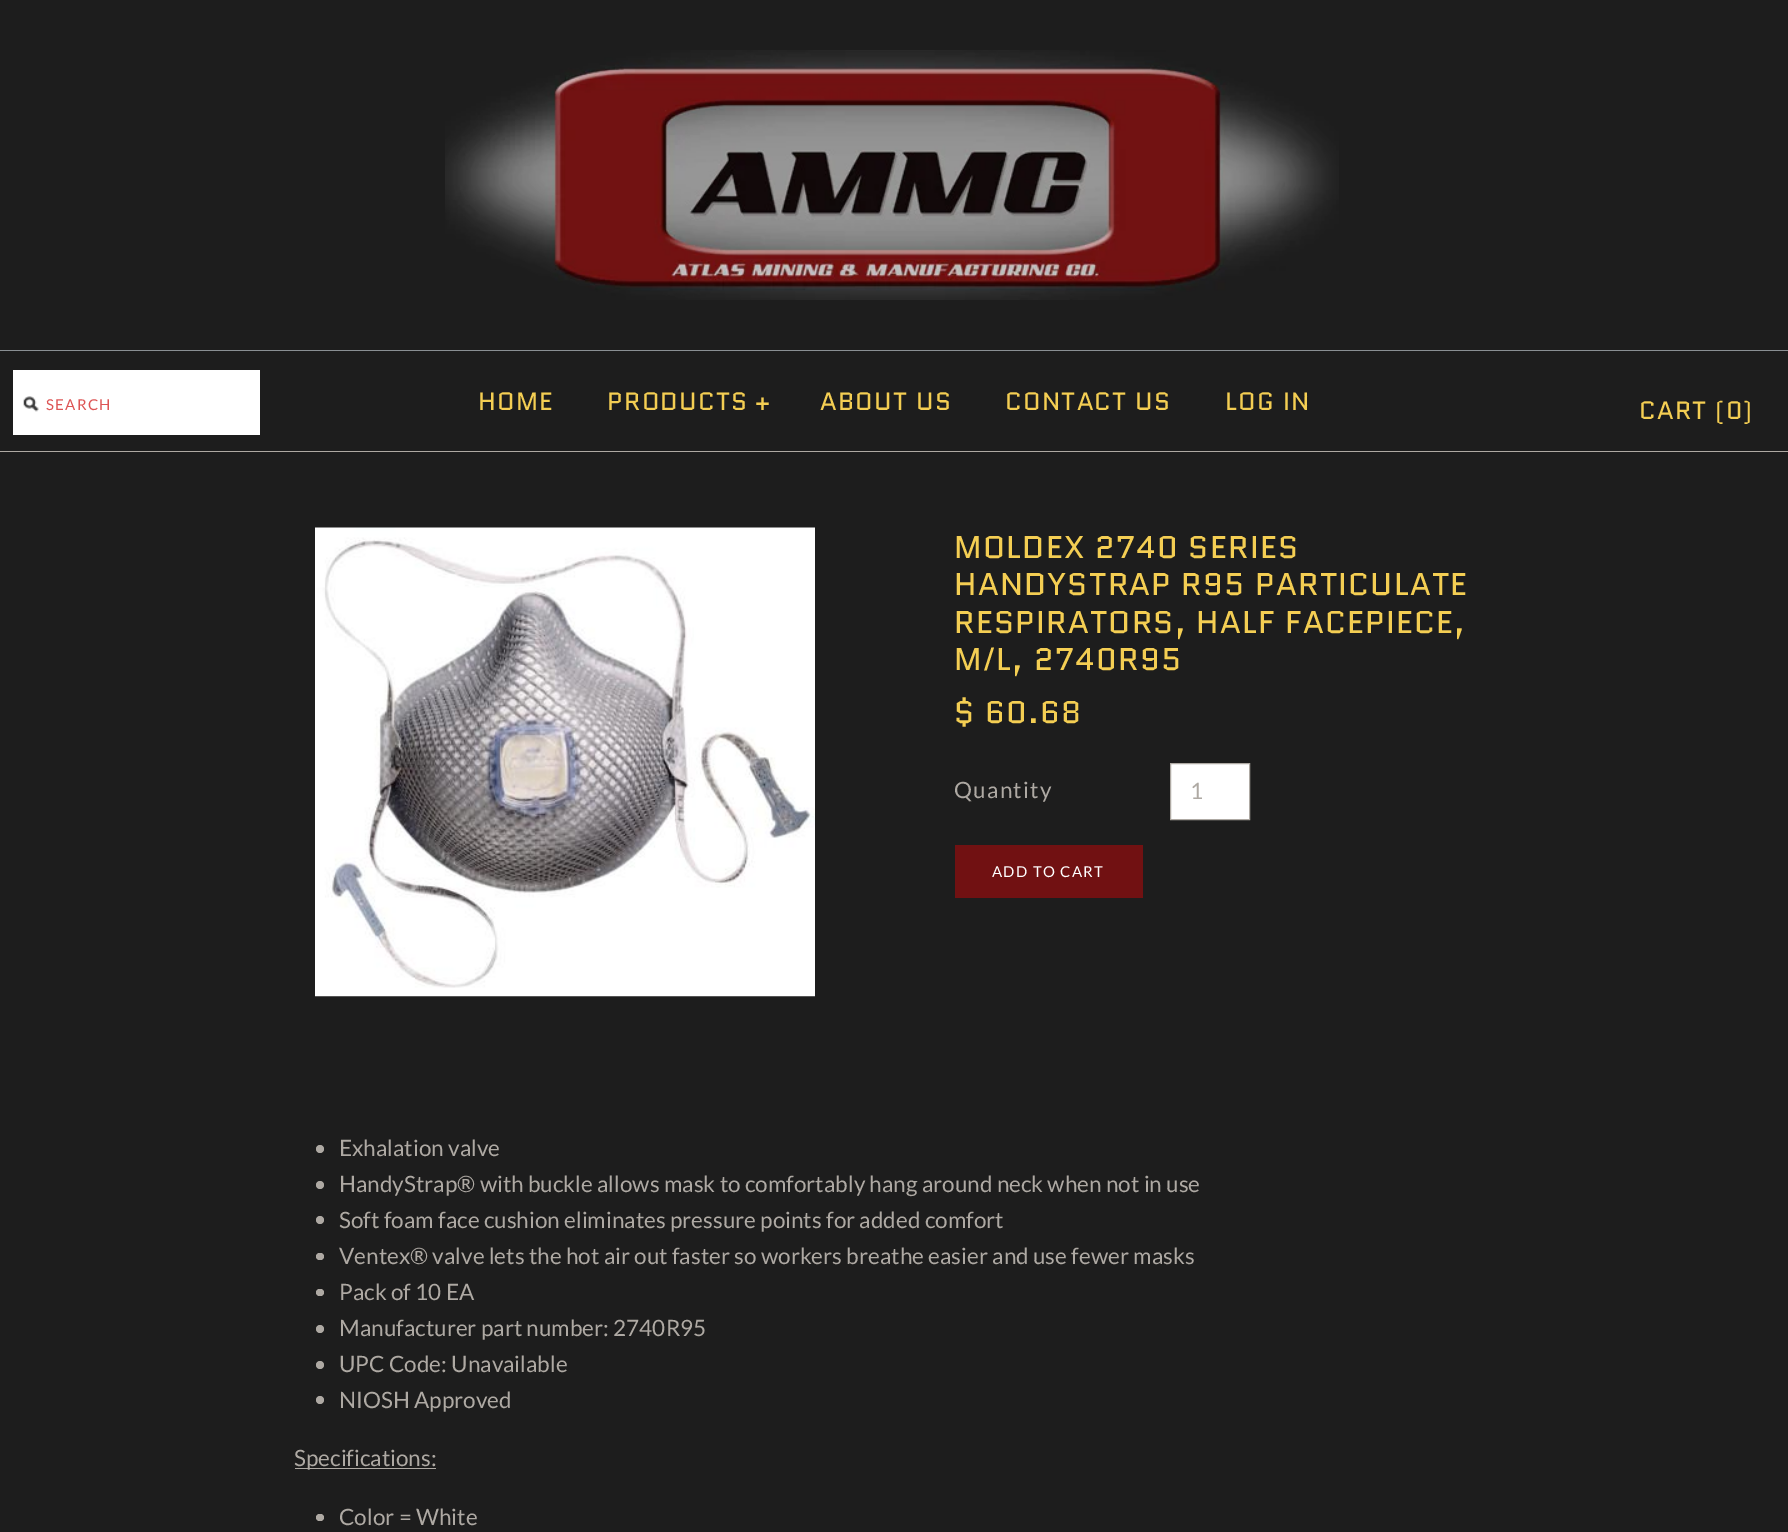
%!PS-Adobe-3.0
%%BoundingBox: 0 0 1788 1532
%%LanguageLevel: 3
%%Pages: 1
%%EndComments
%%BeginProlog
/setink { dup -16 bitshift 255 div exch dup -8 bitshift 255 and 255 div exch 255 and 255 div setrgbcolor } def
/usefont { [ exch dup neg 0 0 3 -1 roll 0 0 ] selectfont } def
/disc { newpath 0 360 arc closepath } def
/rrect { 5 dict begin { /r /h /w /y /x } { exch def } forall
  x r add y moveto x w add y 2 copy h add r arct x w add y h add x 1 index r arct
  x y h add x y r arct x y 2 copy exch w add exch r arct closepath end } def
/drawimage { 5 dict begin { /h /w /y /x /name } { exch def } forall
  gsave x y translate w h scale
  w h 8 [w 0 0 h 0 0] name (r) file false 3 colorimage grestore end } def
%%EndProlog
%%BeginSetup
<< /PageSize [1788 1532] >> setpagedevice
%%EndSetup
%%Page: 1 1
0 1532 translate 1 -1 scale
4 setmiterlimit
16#1D1D1D setink
0 0 1788 1532 rectfill
(img1.raw) 445 50 894 250 drawimage
[
    [0 451 1788 1 16#AEA9A3]
    [0 350 1788 1 16#8A8F93]
    [13 370 247 65 16#FFFFFF]
] { aload pop setink rectfill } forall
(img2.raw) 23 396 16 16 drawimage
/Lato-Regular 15 usefont
16#DD5454 setink
46 410 moveto 1.25 0 (SEARCH) ashow
/Quantico-Regular 25 usefont
16#F4CE53 setink
478 410 moveto 1.25 0 (HOME) ashow
607 410 moveto 1.25 0 (PRODUCTS) ashow
755 410 moveto 1.25 0 (+) ashow
820 410 moveto 1.25 0 (ABOUT US) ashow
1005 410 moveto 1.25 0 (CONTACT US) ashow
1225 410 moveto 1.25 0 (LOG IN) ashow
1639 419 moveto 1.25 0 (CART \(0\)) ashow
(img3.raw) 315 527 500 470 drawimage
/Quantico-Regular 31.25 usefont
954 558 moveto 1.25 0 (MOLDEX 2740 SERIES) ashow
954 595 moveto 1.25 0 (HANDYSTRAP R95 PARTICULATE) ashow
954 633 moveto 1.25 0 (RESPIRATORS, HALF FACEPIECE,) ashow
954 670 moveto 1.25 0 (M/L, 2740R95) ashow
954 723 moveto 1.25 0 ($ 60.68) ashow
/Lato-Regular 22.5 usefont
16#AEA9A3 setink
954 798 moveto 1.25 0 (Quantity) ashow
16#FFFFFF setink
1170.5 763.5 moveto 1249.5 763.5 lineto 1249.5 819.5 lineto 1170.5 819.5 lineto closepath gsave fill grestore
16#AEA9A3 setink
stroke
1190 799 moveto 1.25 0 (1) ashow
16#711112 setink
955 845 188 53 rectfill
/Lato-Regular 15 usefont
16#FFFFFF setink
992 877 moveto 1.25 0 (ADD TO CART) ashow
16#AEA9A3 setink
320 1149 4 disc fill
/Lato-Regular 22.5 usefont
339 1156 moveto (Exhalation valve) show
320 1185 4 disc fill
339 1192 moveto (HandyStrap® with buckle allows mask to comfortably hang around neck when not in use) show
320 1220 4 disc fill
339 1228 moveto (Soft foam face cushion eliminates pressure points for added comfort) show
316 1253 8 7 3.5 rrect fill
339 1264 moveto (Ventex® valve lets the hot air out faster so workers breathe easier and use fewer masks) show
316 1289 8 7 3.5 rrect fill
339 1300 moveto (Pack of 10 EA) show
320 1329 4 disc fill
339 1336 moveto (Manufacturer part number: 2740R95) show
320 1365 4 disc fill
339 1372 moveto (UPC Code: Unavailable) show
320 1400 4 disc fill
339 1408 moveto (NIOSH Approved) show
295 1468 141 1 rectfill
294 1466 moveto (Specifications:) show
316 1514 8 7 3.5 rrect fill
339 1525 moveto (Color = White) show
showpage
%%EOF
